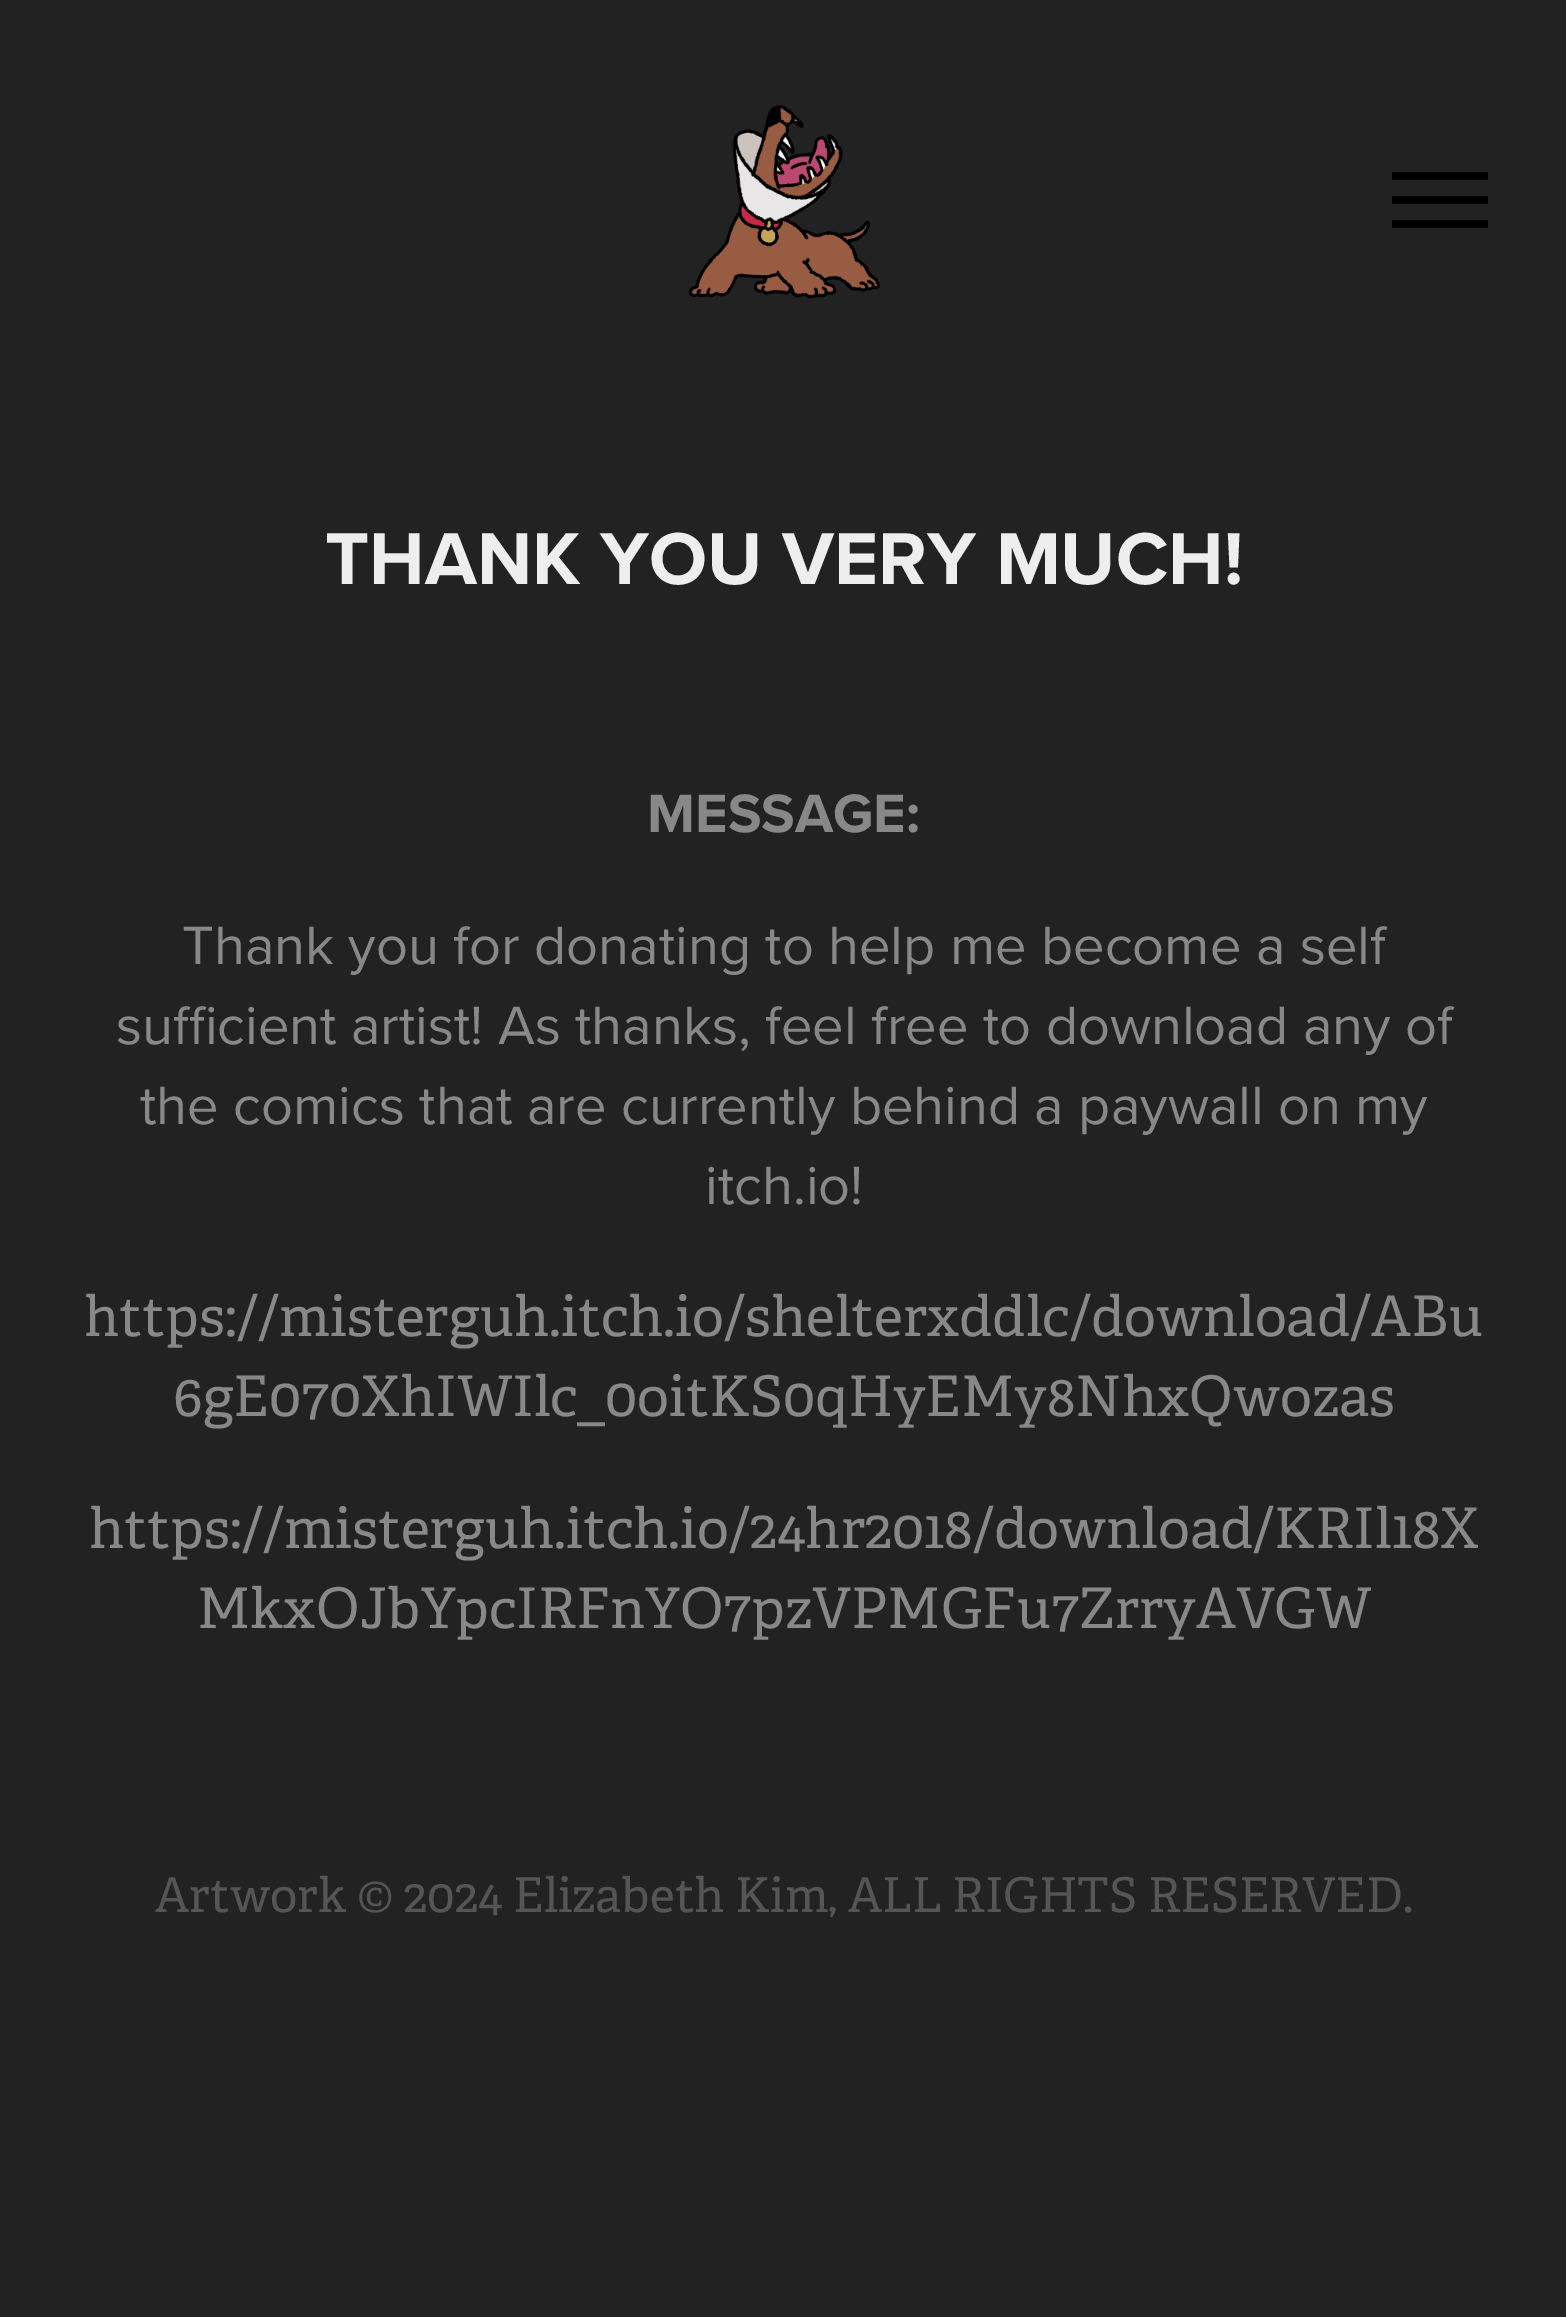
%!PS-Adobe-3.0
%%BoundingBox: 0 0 1566 2317
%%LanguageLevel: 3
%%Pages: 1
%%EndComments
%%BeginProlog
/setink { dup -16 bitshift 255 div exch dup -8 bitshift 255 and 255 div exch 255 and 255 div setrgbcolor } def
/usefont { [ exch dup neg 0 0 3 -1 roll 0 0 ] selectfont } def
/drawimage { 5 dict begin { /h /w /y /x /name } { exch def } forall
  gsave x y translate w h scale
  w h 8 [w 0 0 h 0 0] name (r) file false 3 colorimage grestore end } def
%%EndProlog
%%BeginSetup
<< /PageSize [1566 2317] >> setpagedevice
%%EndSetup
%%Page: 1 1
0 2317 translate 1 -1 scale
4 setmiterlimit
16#222222 setink
0 0 1566 2317 rectfill
(img1.raw) 688 104 192 195 drawimage
[
    [1392 172 96 8 16#000000]
    [1392 196 96 8 16#000000]
    [1392 220 96 8 16#000000]
] { aload pop setink rectfill } forall
/ProximaNova-Bold 76 usefont
16#EEEEEE setink
325 584 moveto (THANK YOU VERY MUCH!) show
/ProximaNova-Bold 56 usefont
16#888888 setink
647 832 moveto (MESSAGE:) show
/ProximaNova-Regular 56 usefont
[
    [(Thank you for donating to help me become a self) 182 964]
    [(sufficient artist! As thanks, feel free to download any of) 116 1044]
    [(the comics that are currently behind a paywall on my) 140 1124]
    [(itch.io!) 705 1204]
] { aload pop moveto show } forall
/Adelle-Regular 56 usefont
[
    [(https://misterguh.itch.io/shelterxddlc/download/ABu) 84 1336]
    [(6gE070XhIWIlc_0oitKS0qHyEMy8NhxQwozas) 173 1416]
    [(https://misterguh.itch.io/24hr2018/download/KRIl18X) 89 1548]
    [(MkxOJbYpcIRFnYO7pzVPMGFu7ZrryAVGW) 197 1628]
] { aload pop moveto show } forall
/Adelle-Regular 48 usefont
16#555555 setink
155 1912 moveto (Artwork © 2024 Elizabeth Kim, ALL RIGHTS RESERVED.) show
showpage
%%EOF
